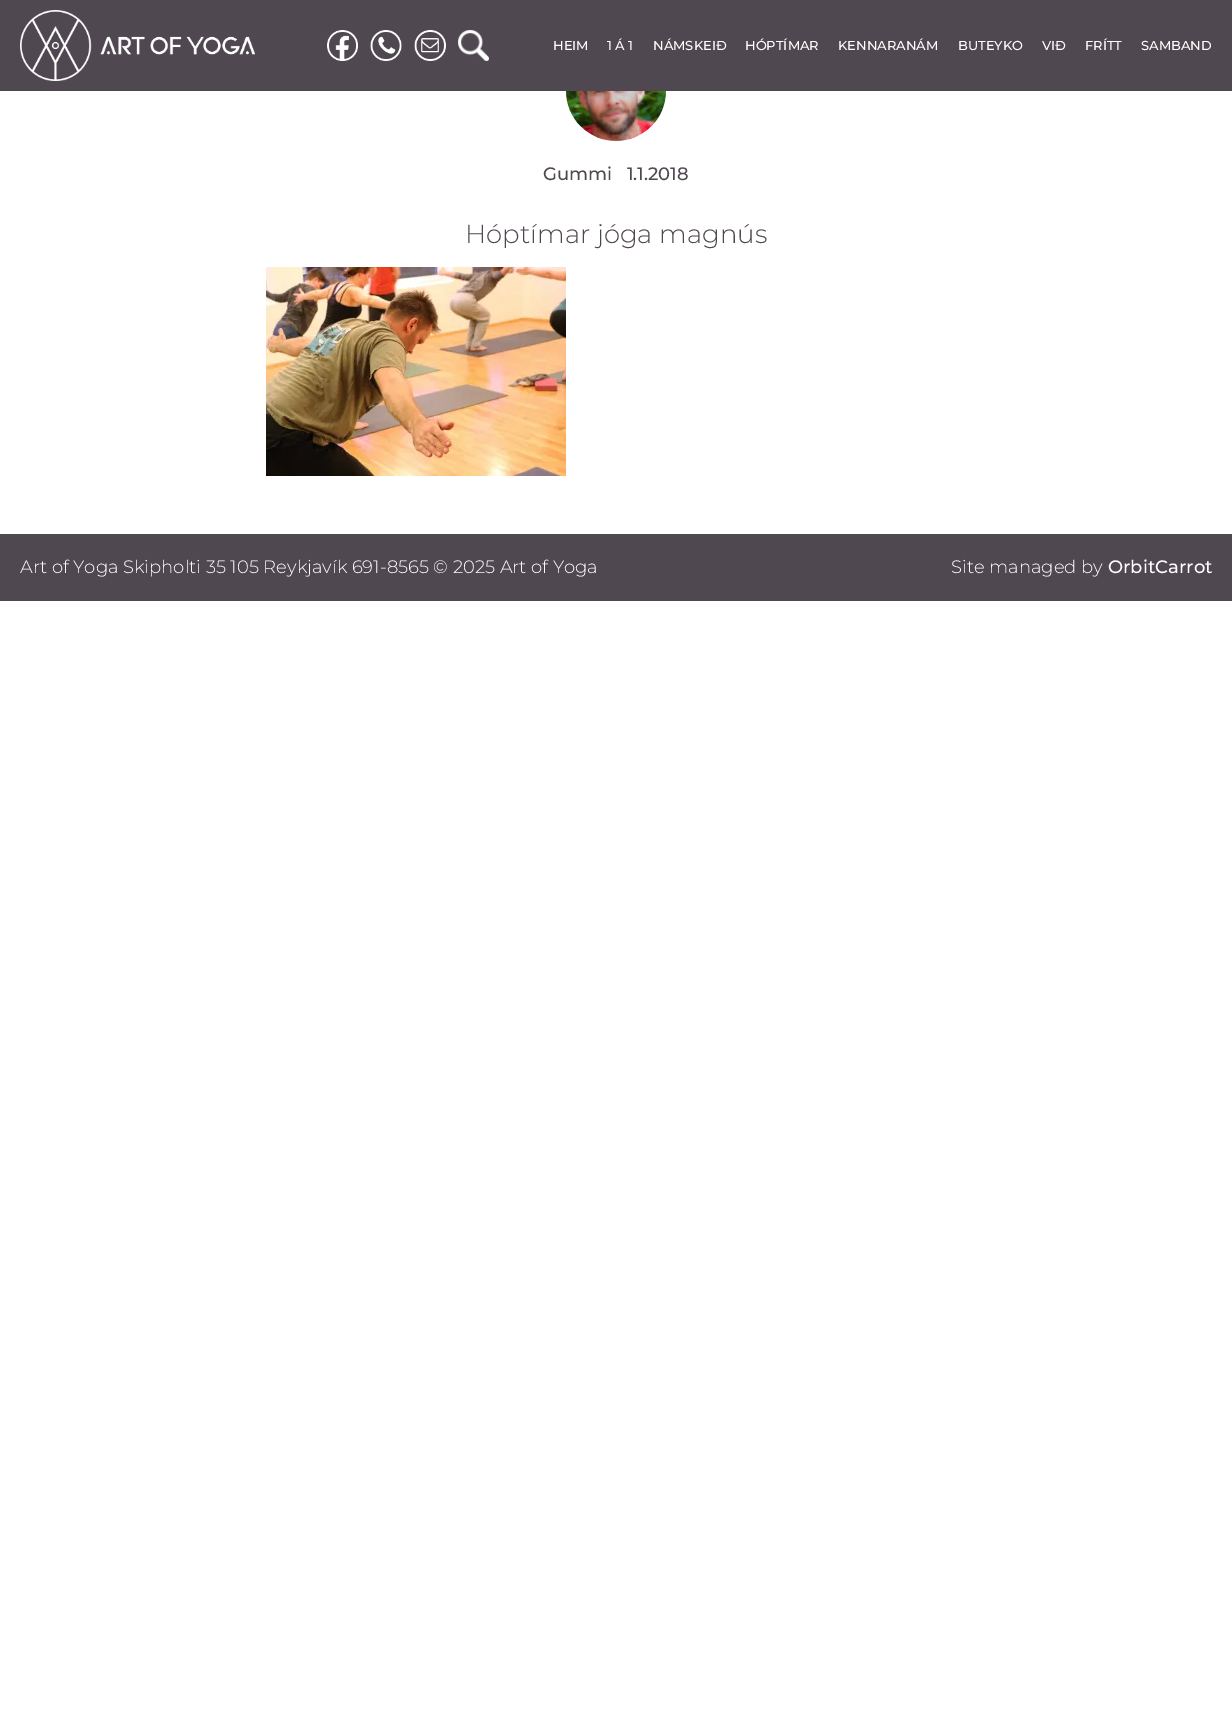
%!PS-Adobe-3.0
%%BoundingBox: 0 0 1232 1733
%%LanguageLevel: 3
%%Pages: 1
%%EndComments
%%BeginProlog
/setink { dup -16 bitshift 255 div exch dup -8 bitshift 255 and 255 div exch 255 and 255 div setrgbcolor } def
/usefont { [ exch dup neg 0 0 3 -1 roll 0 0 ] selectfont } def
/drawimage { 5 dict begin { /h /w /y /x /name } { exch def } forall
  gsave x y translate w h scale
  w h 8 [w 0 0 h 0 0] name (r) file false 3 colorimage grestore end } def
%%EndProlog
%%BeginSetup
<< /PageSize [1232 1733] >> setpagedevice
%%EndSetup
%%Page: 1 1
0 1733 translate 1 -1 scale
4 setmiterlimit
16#FFFFFF setink
0 0 1232 1733 rectfill
16#504850 setink
0 0 1232 91 rectfill
(img1.raw) 20 10 235 71 drawimage
(img2.raw) 327 30 31 31 drawimage
(img3.raw) 370 30 32 31 drawimage
(img4.raw) 414 30 32 31 drawimage
(img5.raw) 458 30 31 31 drawimage
/Montserrat-Medium 13 usefont
16#FFFFFF setink
[
    [(HEIM) 553 50]
    [(1 Á 1) 607 50]
    [(NÁMSKEIÐ) 653 50]
    [(HÓPTÍMAR) 745 50]
    [(KENNARANÁM) 838 50]
    [(BUTEYKO) 958 50]
    [(VIÐ) 1042 50]
    [(FRÍTT) 1085 50]
    [(SAMBAND) 1141 50]
] { aload pop moveto show } forall
(img6.raw) 566 91 100 50 drawimage
/Montserrat-Medium 18 usefont
16#504850 setink
543 180 moveto (Gummi   1.1.2018) show
/Montserrat-Light 26 usefont
465 243 moveto (Hóptímar jóga magnús) show
(img7.raw) 266 267 300 209 drawimage
0 534 1232 67 rectfill
/Montserrat-Light 18 usefont
16#FFFFFF setink
20 573 moveto (Art of Yoga Skipholti 35 105 Reykjavík 691-8565 © 2025 Art of Yoga) show
951 573 moveto (Site managed by) show
/Montserrat-Medium 18 usefont
1108 573 moveto (OrbitCarrot) show
showpage
%%EOF
